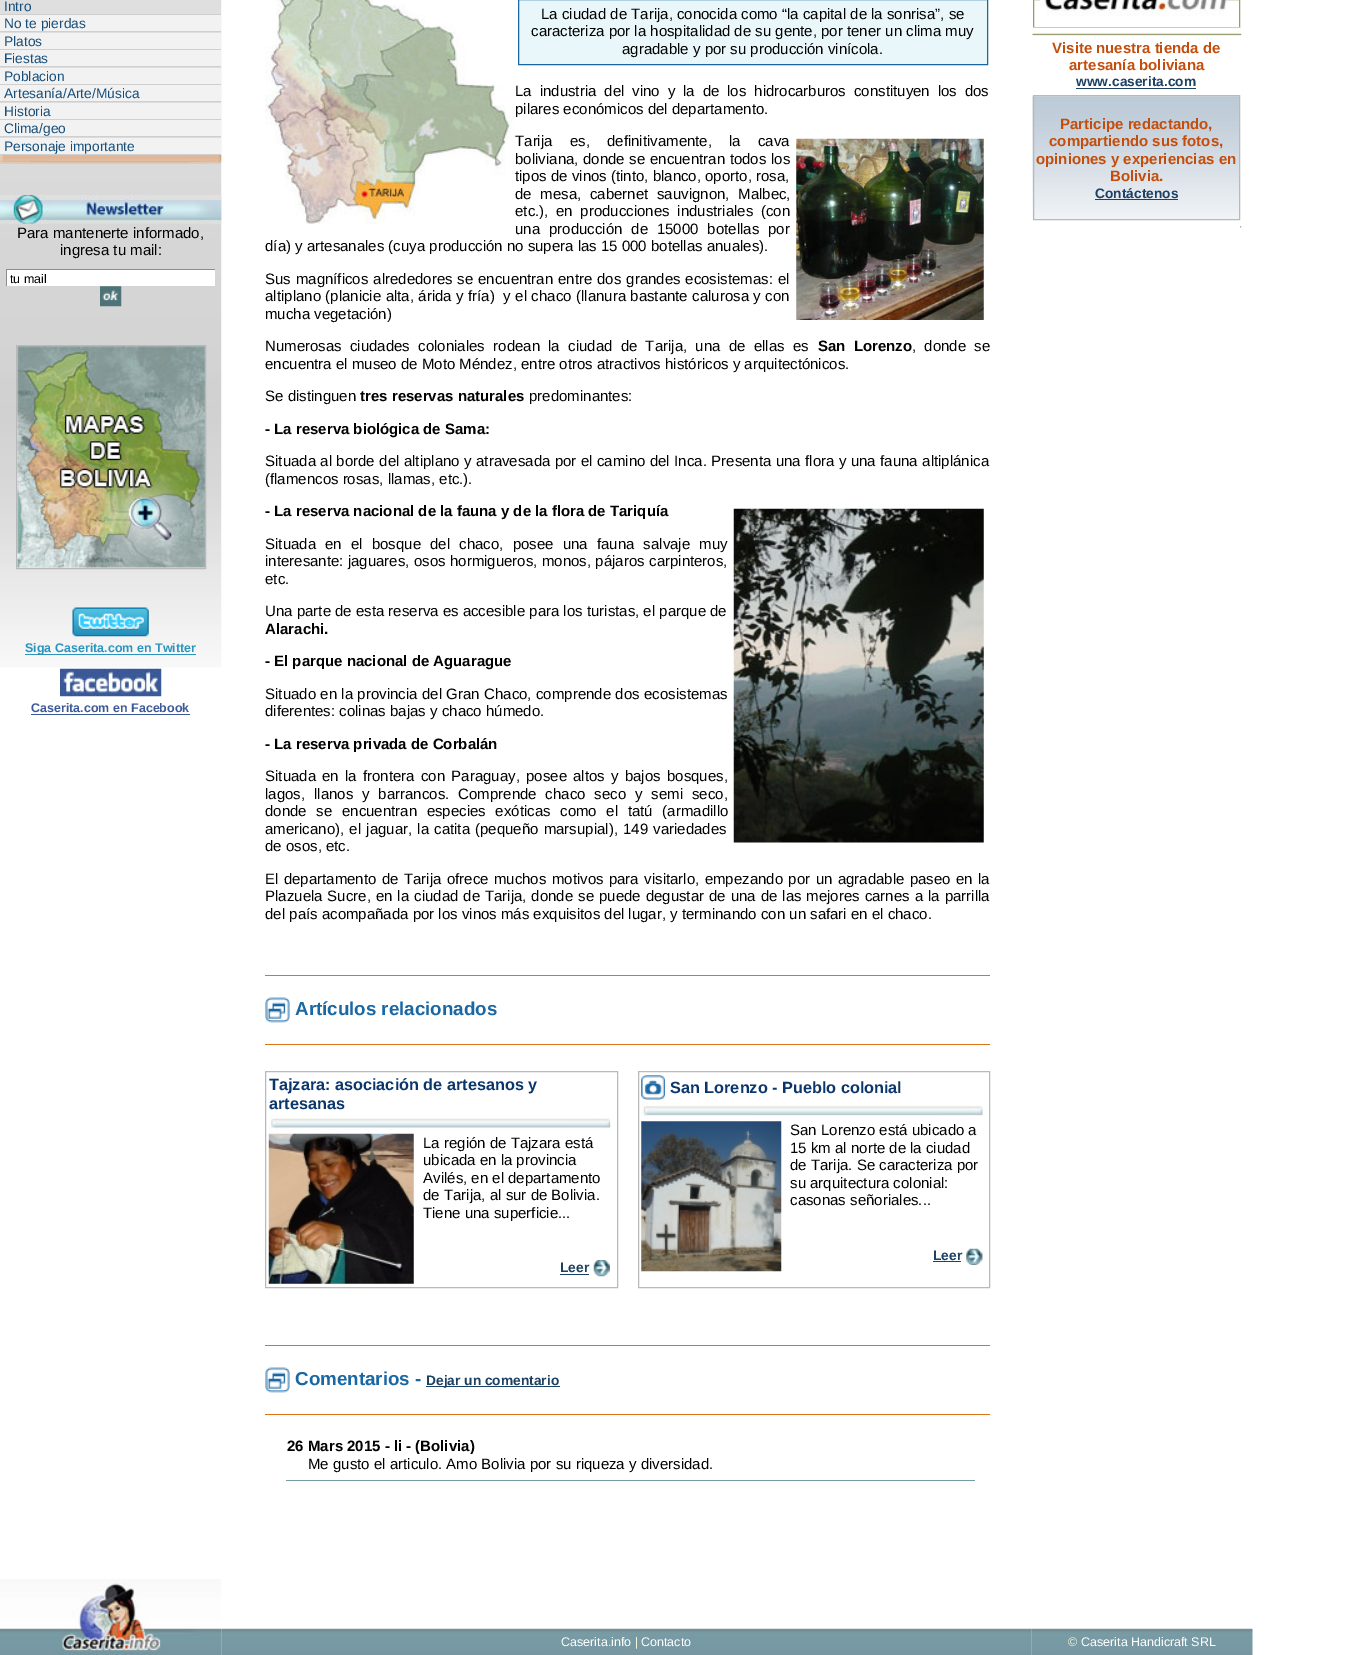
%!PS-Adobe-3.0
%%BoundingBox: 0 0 1350 1655
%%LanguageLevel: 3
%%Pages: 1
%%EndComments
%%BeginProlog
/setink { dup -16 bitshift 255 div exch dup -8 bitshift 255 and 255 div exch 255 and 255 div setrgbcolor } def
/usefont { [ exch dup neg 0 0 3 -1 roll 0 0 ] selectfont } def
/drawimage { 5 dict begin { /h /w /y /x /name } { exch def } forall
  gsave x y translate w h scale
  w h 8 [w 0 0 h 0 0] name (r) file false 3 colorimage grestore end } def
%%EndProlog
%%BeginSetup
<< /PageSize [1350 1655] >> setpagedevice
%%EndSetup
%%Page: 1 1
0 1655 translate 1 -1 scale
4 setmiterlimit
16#FFFFFF setink
0 0 1350 1655 rectfill
(img1.raw) 0 0 222 668 drawimage
/LiberationSans-Regular 13.75 usefont
16#174E79 setink
4 11 moveto (Intro) show
16#CFCFCF setink
0 14 221 1 rectfill
16#F2F2F2 setink
0 15 221 16 rectfill
16#174E79 setink
4 28 moveto (No te pierdas) show
16#CFCFCF setink
0 31 221 1 rectfill
16#F2F2F2 setink
0 33 221 16 rectfill
16#174E79 setink
4 46 moveto (Platos) show
16#CFCFCF setink
0 49 221 1 rectfill
16#F2F2F2 setink
0 50 221 16 rectfill
16#174E79 setink
4 63 moveto (Fiestas) show
16#CFCFCF setink
0 66 221 1 rectfill
16#F2F2F2 setink
0 68 221 16 rectfill
16#174E79 setink
4 81 moveto (Poblacion) show
16#CFCFCF setink
0 84 221 1 rectfill
16#F2F2F2 setink
0 85 221 16 rectfill
16#174E79 setink
4 98 moveto (Artesanía/Arte/Música) show
16#CFCFCF setink
0 101 221 1 rectfill
16#F2F2F2 setink
0 103 221 16 rectfill
16#174E79 setink
4 116 moveto (Historia) show
16#CFCFCF setink
0 119 221 1 rectfill
16#F2F2F2 setink
0 120 221 16 rectfill
16#174E79 setink
4 133 moveto (Clima/geo) show
16#CFCFCF setink
0 136 221 1 rectfill
16#F2F2F2 setink
0 138 221 16 rectfill
16#174E79 setink
4 151 moveto (Personaje importante) show
16#CFCFCF setink
0 154 221 1 rectfill
(img2.raw) 0 155 222 8 drawimage
0 163 221 1 rectfill
(img3.raw) 0 195 222 29 drawimage
/LiberationSans-Regular 15 usefont
16#000000 setink
17 238 moveto (Para mantenerte informado,) show
60 255 moveto (ingresa tu mail:) show
[
    [7 270 208 16 16#FFFFFF]
    [6 269 209 1 16#8D8D8D]
    [6 269 1 17 16#8D8D8D]
] { aload pop setink rectfill } forall
/LiberationSans-Regular 12.5 usefont
16#000000 setink
10 283 moveto (tu mail) show
(img4.raw) 100 286 22 21 drawimage
16#B9B9B9 setink
16.5 345.5 189 223 rectstroke
(img5.raw) 17 346 188 222 drawimage
(img6.raw) 72 607 77 30 drawimage
16#2994BE setink
25 654 171 1 rectfill
/LiberationSans-Bold 12.5 usefont
25 652 moveto (Siga Caserita.com en Twitter) show
(img7.raw) 60 668 102 29 drawimage
16#3B5997 setink
31 712 moveto (Caserita.com en Facebook) show
31 714 159 1 rectfill
(img8.raw) 265 0 250 224 drawimage
16#E9F7FA setink
518.5 -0.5 moveto 987.5 -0.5 lineto 987.5 64.5 lineto 518.5 64.5 lineto closepath gsave fill grestore
16#1967A3 setink
stroke
/LiberationSans-Regular 15 usefont
16#000000 setink
[
    [(La ciudad de Tarija, conocida como “la capital de la sonrisa”, se) 541 19]
    [(caracteriza por la hospitalidad de su gente, por tener un clima muy) 531 36]
    [(agradable y por su producción vinícola.) 622 54]
] { aload pop moveto show } forall
515 96 moveto 3.75 0 32 (La industria del vino y la de los hidrocarburos constituyen los dos) widthshow
515 114 moveto (pilares económicos del departamento.) show
515 146 moveto 13 0 32 (Tarija es, definitivamente, la cava) widthshow
515 164 moveto 0.5 0 32 (boliviana, donde se encuentran todos los) widthshow
515 181 moveto (tipos de vinos \(tinto, blanco, oporto, rosa,) show
515 199 moveto 4.5 0 32 (de mesa, cabernet sauvignon, Malbec,) widthshow
515 216 moveto 3.5 0 32 (etc.\), en producciones industriales \(con) widthshow
515 234 moveto 4.75 0 32 (una producción de 15000 botellas por) widthshow
265 251 moveto (día\) y artesanales \(cuya producción no supera las 15 000 botellas anuales\).) show
(img9.raw) 796 138 188 182 drawimage
265 284 moveto 0.75 0 32 (Sus magníficos alrededores se encuentran entre dos grandes ecosistemas: el) widthshow
265 301 moveto 0.25 0 32 (altiplano \(planicie alta, árida y fría\)  y el chaco \(llanura bastante calurosa y con) widthshow
265 319 moveto (mucha vegetación\)) show
265 351 moveto 4.1 0 32 (Numerosas ciudades coloniales rodean la ciudad de Tarija, una de ellas es) widthshow
/LiberationSans-Bold 15 usefont
818 351 moveto 4 0 32 (San Lorenzo) widthshow
/LiberationSans-Regular 15 usefont
912 351 moveto 4.1 0 32 (, donde se) widthshow
265 369 moveto (encuentra el museo de Moto Méndez, entre otros atractivos históricos y arquitectónicos.) show
265 401 moveto (Se distinguen) show
/LiberationSans-Bold 15 usefont
360 401 moveto (tres reservas naturales) show
/LiberationSans-Regular 15 usefont
529 401 moveto (predominantes:) show
/LiberationSans-Bold 15 usefont
265 434 moveto (- La reserva biológica de Sama:) show
/LiberationSans-Regular 15 usefont
265 466 moveto 0.3 0 32 (Situada al borde del altiplano y atravesada por el camino del Inca. Presenta una flora y una fauna altiplánica) widthshow
265 484 moveto (\(flamencos rosas, llamas, etc.\).) show
/LiberationSans-Bold 15 usefont
265 516 moveto (- La reserva nacional de la fauna y de la flora de Tariquía) show
(img10.raw) 733 508 251 335 drawimage
/LiberationSans-Regular 15 usefont
265 549 moveto 5 0 32 (Situada en el bosque del chaco, posee una fauna salvaje muy) widthshow
265 566 moveto 0.25 0 32 (interesante: jaguares, osos hormigueros, monos, pájaros carpinteros,) widthshow
265 584 moveto (etc.) show
265 616 moveto (Una parte de esta reserva es accesible para los turistas, el parque de) show
/LiberationSans-Bold 15 usefont
265 634 moveto (Alarachi.) show
265 666 moveto (- El parque nacional de Aguarague) show
/LiberationSans-Regular 15 usefont
265 699 moveto 0.25 0 32 (Situado en la provincia del Gran Chaco, comprende dos ecosistemas) widthshow
265 716 moveto (diferentes: colinas bajas y chaco húmedo.) show
/LiberationSans-Bold 15 usefont
265 749 moveto (- La reserva privada de Corbalán) show
/LiberationSans-Regular 15 usefont
265 781 moveto 2.1 0 32 (Situada en la frontera con Paraguay, posee altos y bajos bosques,) widthshow
265 799 moveto 4.75 0 32 (lagos, llanos y barrancos. Comprende chaco seco y semi seco,) widthshow
265 816 moveto 5.5 0 32 (donde se encuentran especies exóticas como el tatú \(armadillo) widthshow
265 834 moveto 1 0 32 (americano\), el jaguar, la catita \(pequeño marsupial\), 149 variedades) widthshow
265 851 moveto (de osos, etc.) show
265 884 moveto 1.25 0 32 (El departamento de Tarija ofrece muchos motivos para visitarlo, empezando por un agradable paseo en la) widthshow
265 901 moveto 0.8 0 32 (Plazuela Sucre, en la ciudad de Tarija, donde se puede degustar de una de las mejores carnes a la parrilla) widthshow
265 919 moveto (del país acompañada por los vinos más exquisitos del lugar, y terminando con un safari en el chaco.) show
16#DC7515 setink
265 975 725 1 rectfill
265 1044 725 1 rectfill
(img11.raw) 265 997 25 26 drawimage
/LiberationSans-Bold 18.75 usefont
16#1967A3 setink
295 1015 moveto (Artículos relacionados) show
16#B9B9B9 setink
265.5 1071.5 352 216 rectstroke
/LiberationSans-Bold 16.25 usefont
16#0B366C setink
269 1090 moveto (Tajzara: asociación de artesanos y) show
269 1109 moveto (artesanas) show
(img12.raw) 269 1115 343 16 drawimage
(img13.raw) 268 1133 146 151 drawimage
/LiberationSans-Regular 15 usefont
16#000000 setink
[
    [(La región de Tajzara está) 423 1148]
    [(ubicada en la provincia) 423 1165]
    [(Avilés, en el departamento) 423 1183]
    [(de Tarija, al sur de Bolivia.) 423 1200]
    [(Tiene una superficie...) 423 1218]
] { aload pop moveto show } forall
/LiberationSans-Bold 13.75 usefont
16#1D4163 setink
560 1272 moveto (Leer) show
560 1274 29 1 rectfill
(img14.raw) 593 1260 17 17 drawimage
16#B9B9B9 setink
638.5 1071.5 351 216 rectstroke
(img15.raw) 641 1075 24 25 drawimage
/LiberationSans-Bold 16.25 usefont
16#0B366C setink
670 1093 moveto (San Lorenzo - Pueblo colonial) show
(img16.raw) 641 1102 344 17 drawimage
(img17.raw) 641 1121 141 151 drawimage
/LiberationSans-Regular 15 usefont
16#000000 setink
[
    [(San Lorenzo está ubicado a) 790 1135]
    [(15 km al norte de la ciudad) 790 1153]
    [(de Tarija. Se caracteriza por) 790 1170]
    [(su arquitectura colonial:) 790 1188]
    [(casonas señoriales...) 790 1205]
] { aload pop moveto show } forall
/LiberationSans-Bold 13.75 usefont
16#1D4163 setink
933 1260 moveto (Leer) show
933 1261 28 1 rectfill
(img18.raw) 966 1248 17 17 drawimage
16#DC7515 setink
265 1345 725 1 rectfill
265 1414 725 1 rectfill
(img11.raw) 265 1367 25 26 drawimage
/LiberationSans-Bold 18.75 usefont
16#1967A3 setink
295 1385 moveto (Comentarios -) show
16#1D4163 setink
426 1386 134 1 rectfill
/LiberationSans-Bold 13.75 usefont
426 1385 moveto (Dejar un comentario) show
/LiberationSans-Bold 15 usefont
16#000000 setink
287 1451 moveto (26 Mars 2015 - li - \(Bolivia\)) show
/LiberationSans-Regular 15 usefont
308 1469 moveto (Me gusto el articulo. Amo Bolivia por su riqueza y diversidad.) show
16#769BA4 setink
286 1480 689 1 rectfill
16#9A9A68 setink
1033.5 -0.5 206 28 rectstroke
(img19.raw) 1040 0 187 16 drawimage
(img20.raw) 1032 27 208 9 drawimage
(img21.raw) 1240 31 2 5 drawimage
/LiberationSans-Bold 15 usefont
16#C44D0B setink
1052 53 moveto (Visite nuestra tienda de) show
1069 70 moveto (artesanía boliviana) show
/LiberationSans-Bold 13.75 usefont
16#1D4163 setink
1076 86 moveto (www.caserita.com) show
1076 88 120 1 rectfill
(img22.raw) 1032 95 207 125 drawimage
16#B9B9B9 setink
1033.5 95.5 206 124 rectstroke
/LiberationSans-Bold 15 usefont
16#C44D0B setink
[
    [(Participe redactando,) 1060 129]
    [(compartiendo sus fotos,) 1049 146]
    [(opiniones y experiencias en) 1036 164]
    [(Bolivia.) 1110 181]
] { aload pop moveto show } forall
/LiberationSans-Bold 13.75 usefont
16#1D4163 setink
1095 198 moveto (Contáctenos) show
1095 199 83 1 rectfill
(img23.raw) 1240 223 2 5 drawimage
(img25.raw) 221 1628 811 27 drawimage
(img24.raw) 0 1579 222 76 drawimage
/LiberationSans-Regular 12.5 usefont
16#FFFFFF setink
561 1646 moveto (Caserita.info) show
16#F4F7D8 setink
635 1646 moveto (|) show
16#FFFFFF setink
641 1646 moveto (Contacto) show
(img26.raw) 1031 1628 222 27 drawimage
16#F4F7D8 setink
1068 1646 moveto (©) show
16#FFFFFF setink
1081 1646 moveto (Caserita Handicraft SRL) show
showpage
%%EOF
